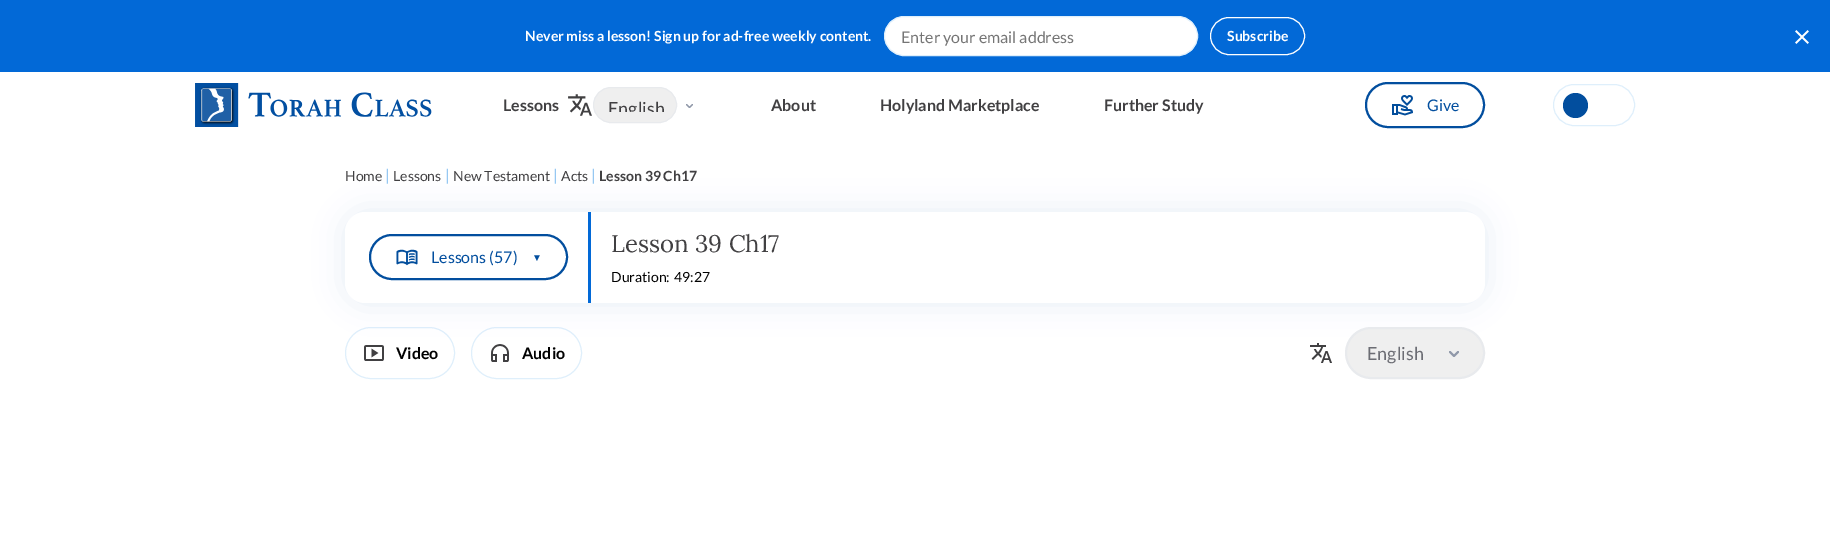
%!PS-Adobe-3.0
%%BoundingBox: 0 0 1830 547
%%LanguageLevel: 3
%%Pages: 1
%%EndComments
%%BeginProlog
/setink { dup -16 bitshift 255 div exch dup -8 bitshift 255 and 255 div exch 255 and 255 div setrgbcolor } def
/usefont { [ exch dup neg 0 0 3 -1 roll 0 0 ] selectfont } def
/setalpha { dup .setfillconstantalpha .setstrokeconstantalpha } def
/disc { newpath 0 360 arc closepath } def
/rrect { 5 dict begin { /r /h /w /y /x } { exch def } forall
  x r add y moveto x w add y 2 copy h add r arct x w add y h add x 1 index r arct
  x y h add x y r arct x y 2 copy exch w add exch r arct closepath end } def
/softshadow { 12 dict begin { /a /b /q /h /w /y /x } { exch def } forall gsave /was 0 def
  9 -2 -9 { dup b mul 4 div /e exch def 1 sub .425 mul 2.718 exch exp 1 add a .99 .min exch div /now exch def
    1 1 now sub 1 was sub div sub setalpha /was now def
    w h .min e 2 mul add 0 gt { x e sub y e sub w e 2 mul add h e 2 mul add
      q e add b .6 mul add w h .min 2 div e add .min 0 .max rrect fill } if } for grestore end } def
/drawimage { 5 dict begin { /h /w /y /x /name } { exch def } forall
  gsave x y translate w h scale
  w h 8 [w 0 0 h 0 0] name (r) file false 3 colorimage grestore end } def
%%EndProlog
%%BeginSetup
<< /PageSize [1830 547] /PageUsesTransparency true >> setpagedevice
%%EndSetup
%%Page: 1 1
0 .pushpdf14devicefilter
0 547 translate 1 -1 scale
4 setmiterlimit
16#FFFFFF setink
0 0 1830 547 rectfill
16#0269D7 setink
0 0 1830 72 rectfill
/Lato-Bold 14 usefont
16#FFFFFF setink
525 41 moveto (Never miss a lesson! Sign up for ad-free weekly content.) show
884.5 16.5 313 39 19.5 rrect gsave fill grestore
16#DFEFFB setink
stroke
/Lato-Regular 16 usefont
16#757575 setink
901 43 moveto (Enter your email address) show
16#FFFFFF setink
1210.5 17.5 94 37 18.5 rrect stroke
/Lato-Bold 14 usefont
1227 41 moveto (Subscribe) show
(img1.raw) 1795 30 14 14 drawimage
(img2.raw) 195 83 237 44 drawimage
/Lato-Bold 16 usefont
16#414042 setink
503 111 moveto (Lessons) show
(img3.raw) 568 94 24 22 drawimage
16#EFEFEF setink
593.5 87.5 83 35 17.5 rrect gsave fill grestore
16#E8EAED setink
stroke
gsave
608 97 61 15 rectclip
/Lato-Regular 18 usefont
16#414042 setink
608 115 moveto (English) show
grestore
gsave
686 104 7 4 rectclip
16#9098A9 setink
1.4 setlinewidth
1 setlinecap
1 setlinejoin
686.5 104.5 moveto 689.5 107.5 lineto 692.5 104.5 lineto stroke
grestore
16#414042 setink
[
    [(About) 771 111]
    [(Holyland Marketplace) 880 111]
    [(Further Study) 1104 111]
] { aload pop moveto show } forall
16#024E9E setink
2 setlinewidth
1366 83 118 44 22 rrect stroke
(img4.raw) 1392 95 21 21 drawimage
/Lato-Regular 16 usefont
1427 111 moveto (Give) show
16#DFEFFB setink
1 setlinewidth
1553.5 84.5 81 41 20.5 rrect stroke
16#024E9E setink
1575.5 105.5 12.5 disc fill
/Lato-Regular 14 usefont
16#414042 setink
345 181 moveto (Home) show
/Lato-Regular 16 usefont
16#96C8F2 setink
385 181 moveto (|) show
/Lato-Regular 14 usefont
16#414042 setink
393 181 moveto (Lessons) show
/Lato-Regular 16 usefont
16#96C8F2 setink
445 181 moveto (|) show
/Lato-Regular 14 usefont
16#414042 setink
453 181 moveto (New Testament) show
/Lato-Regular 16 usefont
16#96C8F2 setink
553 181 moveto (|) show
/Lato-Regular 14 usefont
16#414042 setink
561 181 moveto (Acts) show
/Lato-Regular 16 usefont
16#96C8F2 setink
591 181 moveto (|) show
/Lato-Bold 14 usefont
16#414042 setink
599 181 moveto (Lesson 39 Ch17) show
16#DFEFFB setink
345.5 327.5 109 51 25.5 rrect stroke
(img6.raw) 364 345 20 16 drawimage
471.5 327.5 110 51 25.5 rrect stroke
(img7.raw) 491 344 18 18 drawimage
16#024E9E setink
345 212 1140 91 20 15 0.1 softshadow
16#FFFFFF setink
345 212 1140 91 20 rrect fill
16#024E9E setink
2 setlinewidth
370 235 197 44 22 rrect stroke
(img5.raw) 396 249 22 17 drawimage
/Lato-Regular 16 usefont
431 263 moveto (Lessons \(57\)) show
/LiberationSans-Regular 10 usefont
532 261 moveto (▼) show
16#0269D7 setink
588 212 3 91 rectfill
/Lora-Regular 24 usefont
16#414042 setink
611 252 moveto (Lesson 39 Ch17) show
/Lato-Regular 14 usefont
16#000000 setink
611 282 moveto (Duration:) show
674 282 moveto (49:27) show
/Lato-Bold 16 usefont
396 359 moveto (Video) show
522 359 moveto (Audio) show
(img8.raw) 1310 343 22 20 drawimage
16#EFEFEF setink
1346 328 138 50 25 rrect gsave fill grestore
16#E8EAED setink
stroke
/Lato-Regular 18 usefont
16#6C6D74 setink
1367 360 moveto (English) show
16#9098A9 setink
1 setlinecap
1 setlinejoin
1450 352 moveto 1454 356 lineto 1458 352 lineto stroke
.poppdf14devicefilter showpage
%%EOF
